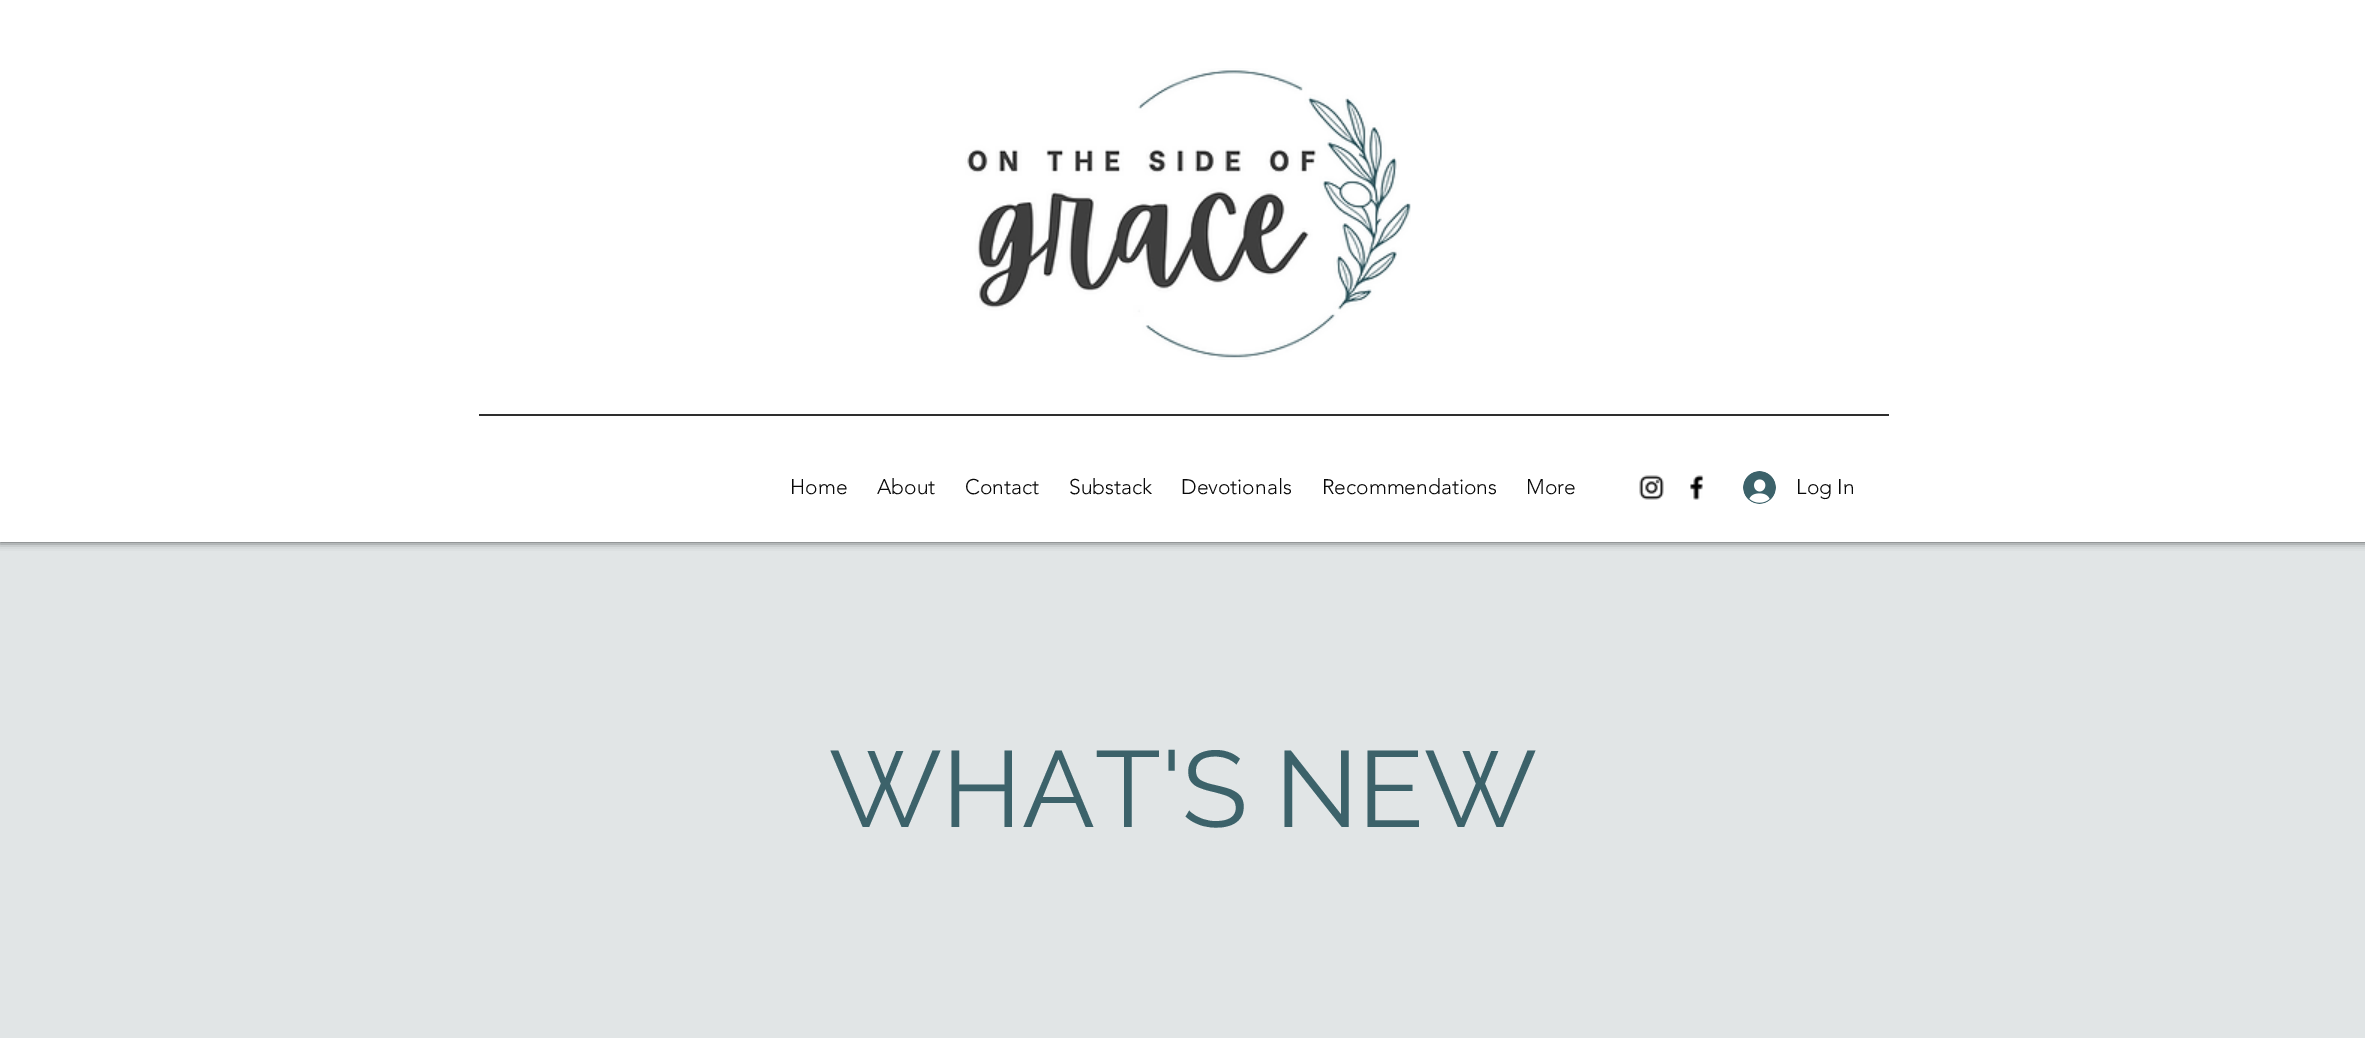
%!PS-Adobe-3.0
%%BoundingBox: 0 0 2365 1038
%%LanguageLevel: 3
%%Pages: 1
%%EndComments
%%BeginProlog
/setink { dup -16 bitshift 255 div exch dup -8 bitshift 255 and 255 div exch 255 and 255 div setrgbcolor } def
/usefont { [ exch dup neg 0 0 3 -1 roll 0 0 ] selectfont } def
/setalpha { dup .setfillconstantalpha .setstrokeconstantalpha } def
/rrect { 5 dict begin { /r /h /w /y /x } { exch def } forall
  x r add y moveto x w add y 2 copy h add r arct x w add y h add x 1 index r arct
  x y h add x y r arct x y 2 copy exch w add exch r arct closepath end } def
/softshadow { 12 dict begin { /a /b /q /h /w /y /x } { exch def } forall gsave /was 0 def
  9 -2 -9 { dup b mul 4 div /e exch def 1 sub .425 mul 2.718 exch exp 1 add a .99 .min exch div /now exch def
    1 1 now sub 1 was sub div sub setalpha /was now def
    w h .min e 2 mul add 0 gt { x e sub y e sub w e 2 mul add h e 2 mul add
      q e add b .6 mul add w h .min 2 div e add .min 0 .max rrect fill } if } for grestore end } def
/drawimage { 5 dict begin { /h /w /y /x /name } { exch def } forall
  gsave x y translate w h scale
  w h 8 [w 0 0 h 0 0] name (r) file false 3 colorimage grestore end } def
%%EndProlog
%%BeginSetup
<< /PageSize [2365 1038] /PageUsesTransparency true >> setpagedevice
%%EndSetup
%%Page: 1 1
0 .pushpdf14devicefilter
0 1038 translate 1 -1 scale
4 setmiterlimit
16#FFFFFF setink
0 0 2365 1038 rectfill
16#E1E5E6 setink
0 542 2365 496 rectfill
gsave
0 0 moveto 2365 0 lineto 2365 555 lineto 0 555 lineto closepath 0 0 moveto 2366 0 lineto 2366 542 lineto 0 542 lineto closepath eoclip newpath
16#000000 setink
0 0 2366 542 0 4 0.7 softshadow
grestore
0.6 setalpha
16#FFFFFF setink
0 541 2365 1 rectfill
1 setalpha
(img1.raw) 965 68 446 292 drawimage
16#2E2E2E setink
479 414 1410 2 rectfill
/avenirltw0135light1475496-Light 21 usefont
16#090909 setink
[
    [(Home) 790 494]
    [(About) 877 494]
    [(Contact) 965 494]
    [(Substack) 1069 494]
    [(Devotionals) 1181 494]
    [(Recommendations) 1322 494]
    [(More) 1526 494]
] { aload pop moveto show } forall
(img2.raw) 1639 475 25 25 drawimage
(img3.raw) 1690 475 14 25 drawimage
(img4.raw) 1743 471 33 33 drawimage
1796 494 moveto (Log In) show
/Raleway-Regular 108 usefont
16#3C626A setink
829 827 moveto (WHAT'S NEW) show
.poppdf14devicefilter showpage
%%EOF
